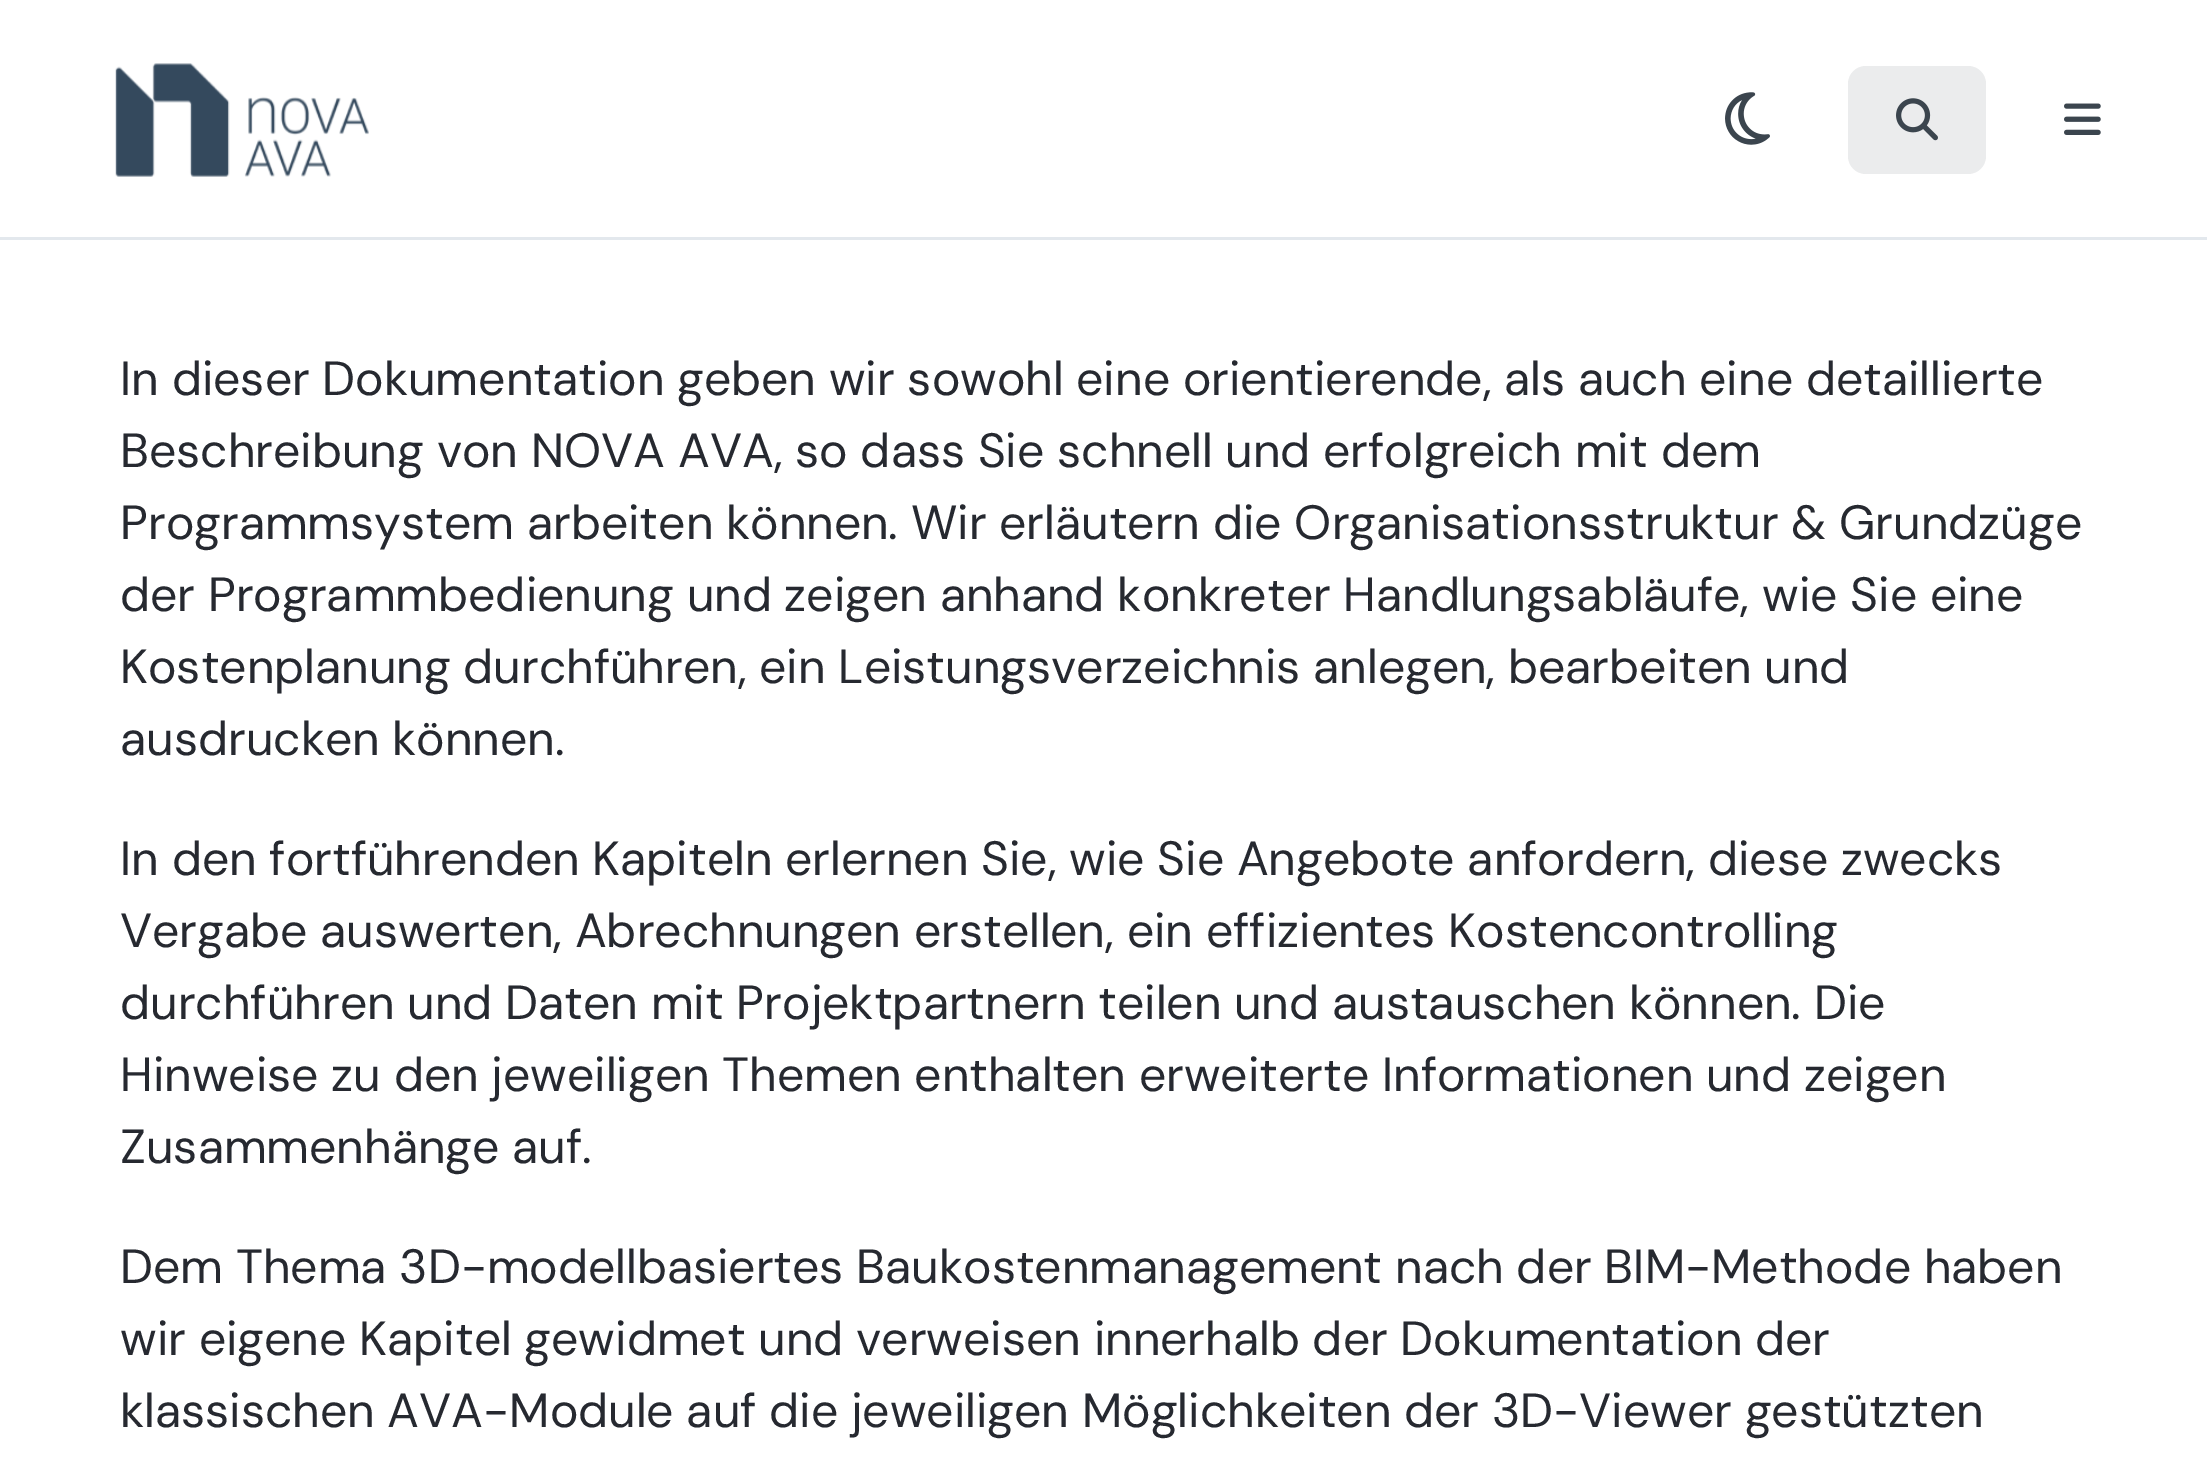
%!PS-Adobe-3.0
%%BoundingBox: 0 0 2207 1469
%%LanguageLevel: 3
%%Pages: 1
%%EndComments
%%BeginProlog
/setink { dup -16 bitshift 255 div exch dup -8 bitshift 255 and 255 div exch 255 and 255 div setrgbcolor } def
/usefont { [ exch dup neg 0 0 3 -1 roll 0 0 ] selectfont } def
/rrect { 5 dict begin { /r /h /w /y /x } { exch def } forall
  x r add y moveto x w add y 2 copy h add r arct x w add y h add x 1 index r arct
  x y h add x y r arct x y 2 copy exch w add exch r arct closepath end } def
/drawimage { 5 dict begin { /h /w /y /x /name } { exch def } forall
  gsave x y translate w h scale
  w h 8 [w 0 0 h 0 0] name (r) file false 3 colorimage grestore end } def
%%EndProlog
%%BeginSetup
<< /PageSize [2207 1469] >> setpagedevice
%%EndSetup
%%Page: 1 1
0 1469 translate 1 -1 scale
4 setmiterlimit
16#FFFFFF setink
0 0 2207 1469 rectfill
16#E3E8ED setink
0 237 2207 3 rectfill
(img1.raw) 115 63 254 114 drawimage
(img2.raw) 1725 92 45 53 drawimage
16#EBECED setink
1848 66 138 108 18 rrect fill
(img3.raw) 1896 98 42 43 drawimage
(img4.raw) 2064 103 37 32 drawimage
/DMSans-Regular 48 usefont
16#262930 setink
[
    [(In dieser Dokumentation geben wir sowohl eine orientierende, als auch eine detaillierte) 120 395]
    [(Beschreibung von NOVA AVA, so dass Sie schnell und erfolgreich mit dem) 120 467]
    [(Programmsystem arbeiten können. Wir erläutern die Organisationsstruktur & Grundzüge) 120 539]
    [(der Programmbedienung und zeigen anhand konkreter Handlungsabläufe, wie Sie eine) 120 611]
    [(Kostenplanung durchführen, ein Leistungsverzeichnis anlegen, bearbeiten und) 120 683]
    [(ausdrucken können.) 120 755]
    [(In den fortführenden Kapiteln erlernen Sie, wie Sie Angebote anfordern, diese zwecks) 120 875]
    [(Vergabe auswerten, Abrechnungen erstellen, ein effizientes Kostencontrolling) 120 947]
    [(durchführen und Daten mit Projektpartnern teilen und austauschen können. Die) 120 1019]
    [(Hinweise zu den jeweiligen Themen enthalten erweiterte Informationen und zeigen) 120 1091]
    [(Zusammenhänge auf.) 120 1163]
    [(Dem Thema 3D-modellbasiertes Baukostenmanagement nach der BIM-Methode haben) 120 1283]
    [(wir eigene Kapitel gewidmet und verweisen innerhalb der Dokumentation der) 120 1355]
    [(klassischen AVA-Module auf die jeweiligen Möglichkeiten der 3D-Viewer gestützten) 120 1427]
] { aload pop moveto show } forall
showpage
%%EOF
